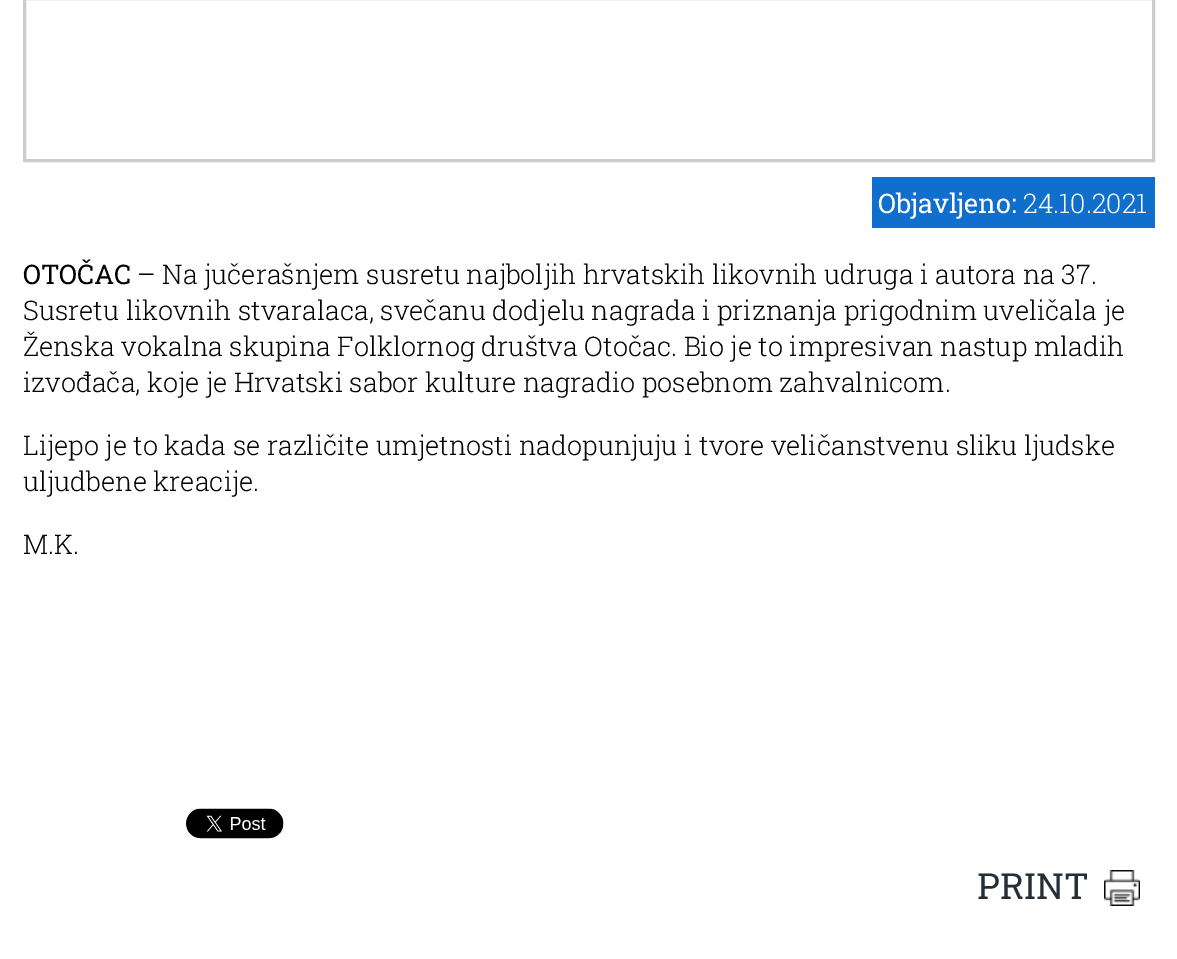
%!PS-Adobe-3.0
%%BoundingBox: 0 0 1177 959
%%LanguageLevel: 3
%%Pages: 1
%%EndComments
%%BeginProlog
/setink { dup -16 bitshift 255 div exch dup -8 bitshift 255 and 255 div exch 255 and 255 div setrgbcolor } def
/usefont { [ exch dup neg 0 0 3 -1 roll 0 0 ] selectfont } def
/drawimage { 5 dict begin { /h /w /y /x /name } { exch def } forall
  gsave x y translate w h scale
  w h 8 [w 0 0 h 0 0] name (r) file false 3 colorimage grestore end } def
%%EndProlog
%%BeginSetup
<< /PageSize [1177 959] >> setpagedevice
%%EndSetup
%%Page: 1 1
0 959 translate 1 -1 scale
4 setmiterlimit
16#FFFFFF setink
0 0 1177 959 rectfill
16#CCCCCC setink
3 setlinewidth
24.5 -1.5 1129 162 rectstroke
16#106FCD setink
872 177 283 51 rectfill
/RobotoSlab-Regular 27 usefont
16#FFFFFF setink
878 213 moveto (Objavljeno:) show
/RobotoSlab-Light 27 usefont
1023 213 moveto (24.10.2021) show
/RobotoSlab-Regular 27 usefont
16#000000 setink
23 284 moveto (OTOČAC) show
/RobotoSlab-Light 27 usefont
[
    [(– Na jučerašnjem susretu najboljih hrvatskih likovnih udruga i autora na 37.) 137 284]
    [(Susretu likovnih stvaralaca, svečanu dodjelu nagrada i priznanja prigodnim uveličala je) 23 320]
    [(Ženska vokalna skupina Folklornog društva Otočac. Bio je to impresivan nastup mladih) 23 356]
    [(izvođača, koje je Hrvatski sabor kulture nagradio posebnom zahvalnicom.) 23 392]
    [(Lijepo je to kada se različite umjetnosti nadopunjuju i tvore veličanstvenu sliku ljudske) 23 455]
    [(uljudbene kreacije.) 23 491]
    [(M.K.) 23 554]
] { aload pop moveto show } forall
(img1.raw) 186 808 98 31 drawimage
/RobotoSlab-Regular 36 usefont
16#242E37 setink
977 899 moveto (PRINT) show
(img2.raw) 1104 870 36 36 drawimage
showpage
%%EOF
